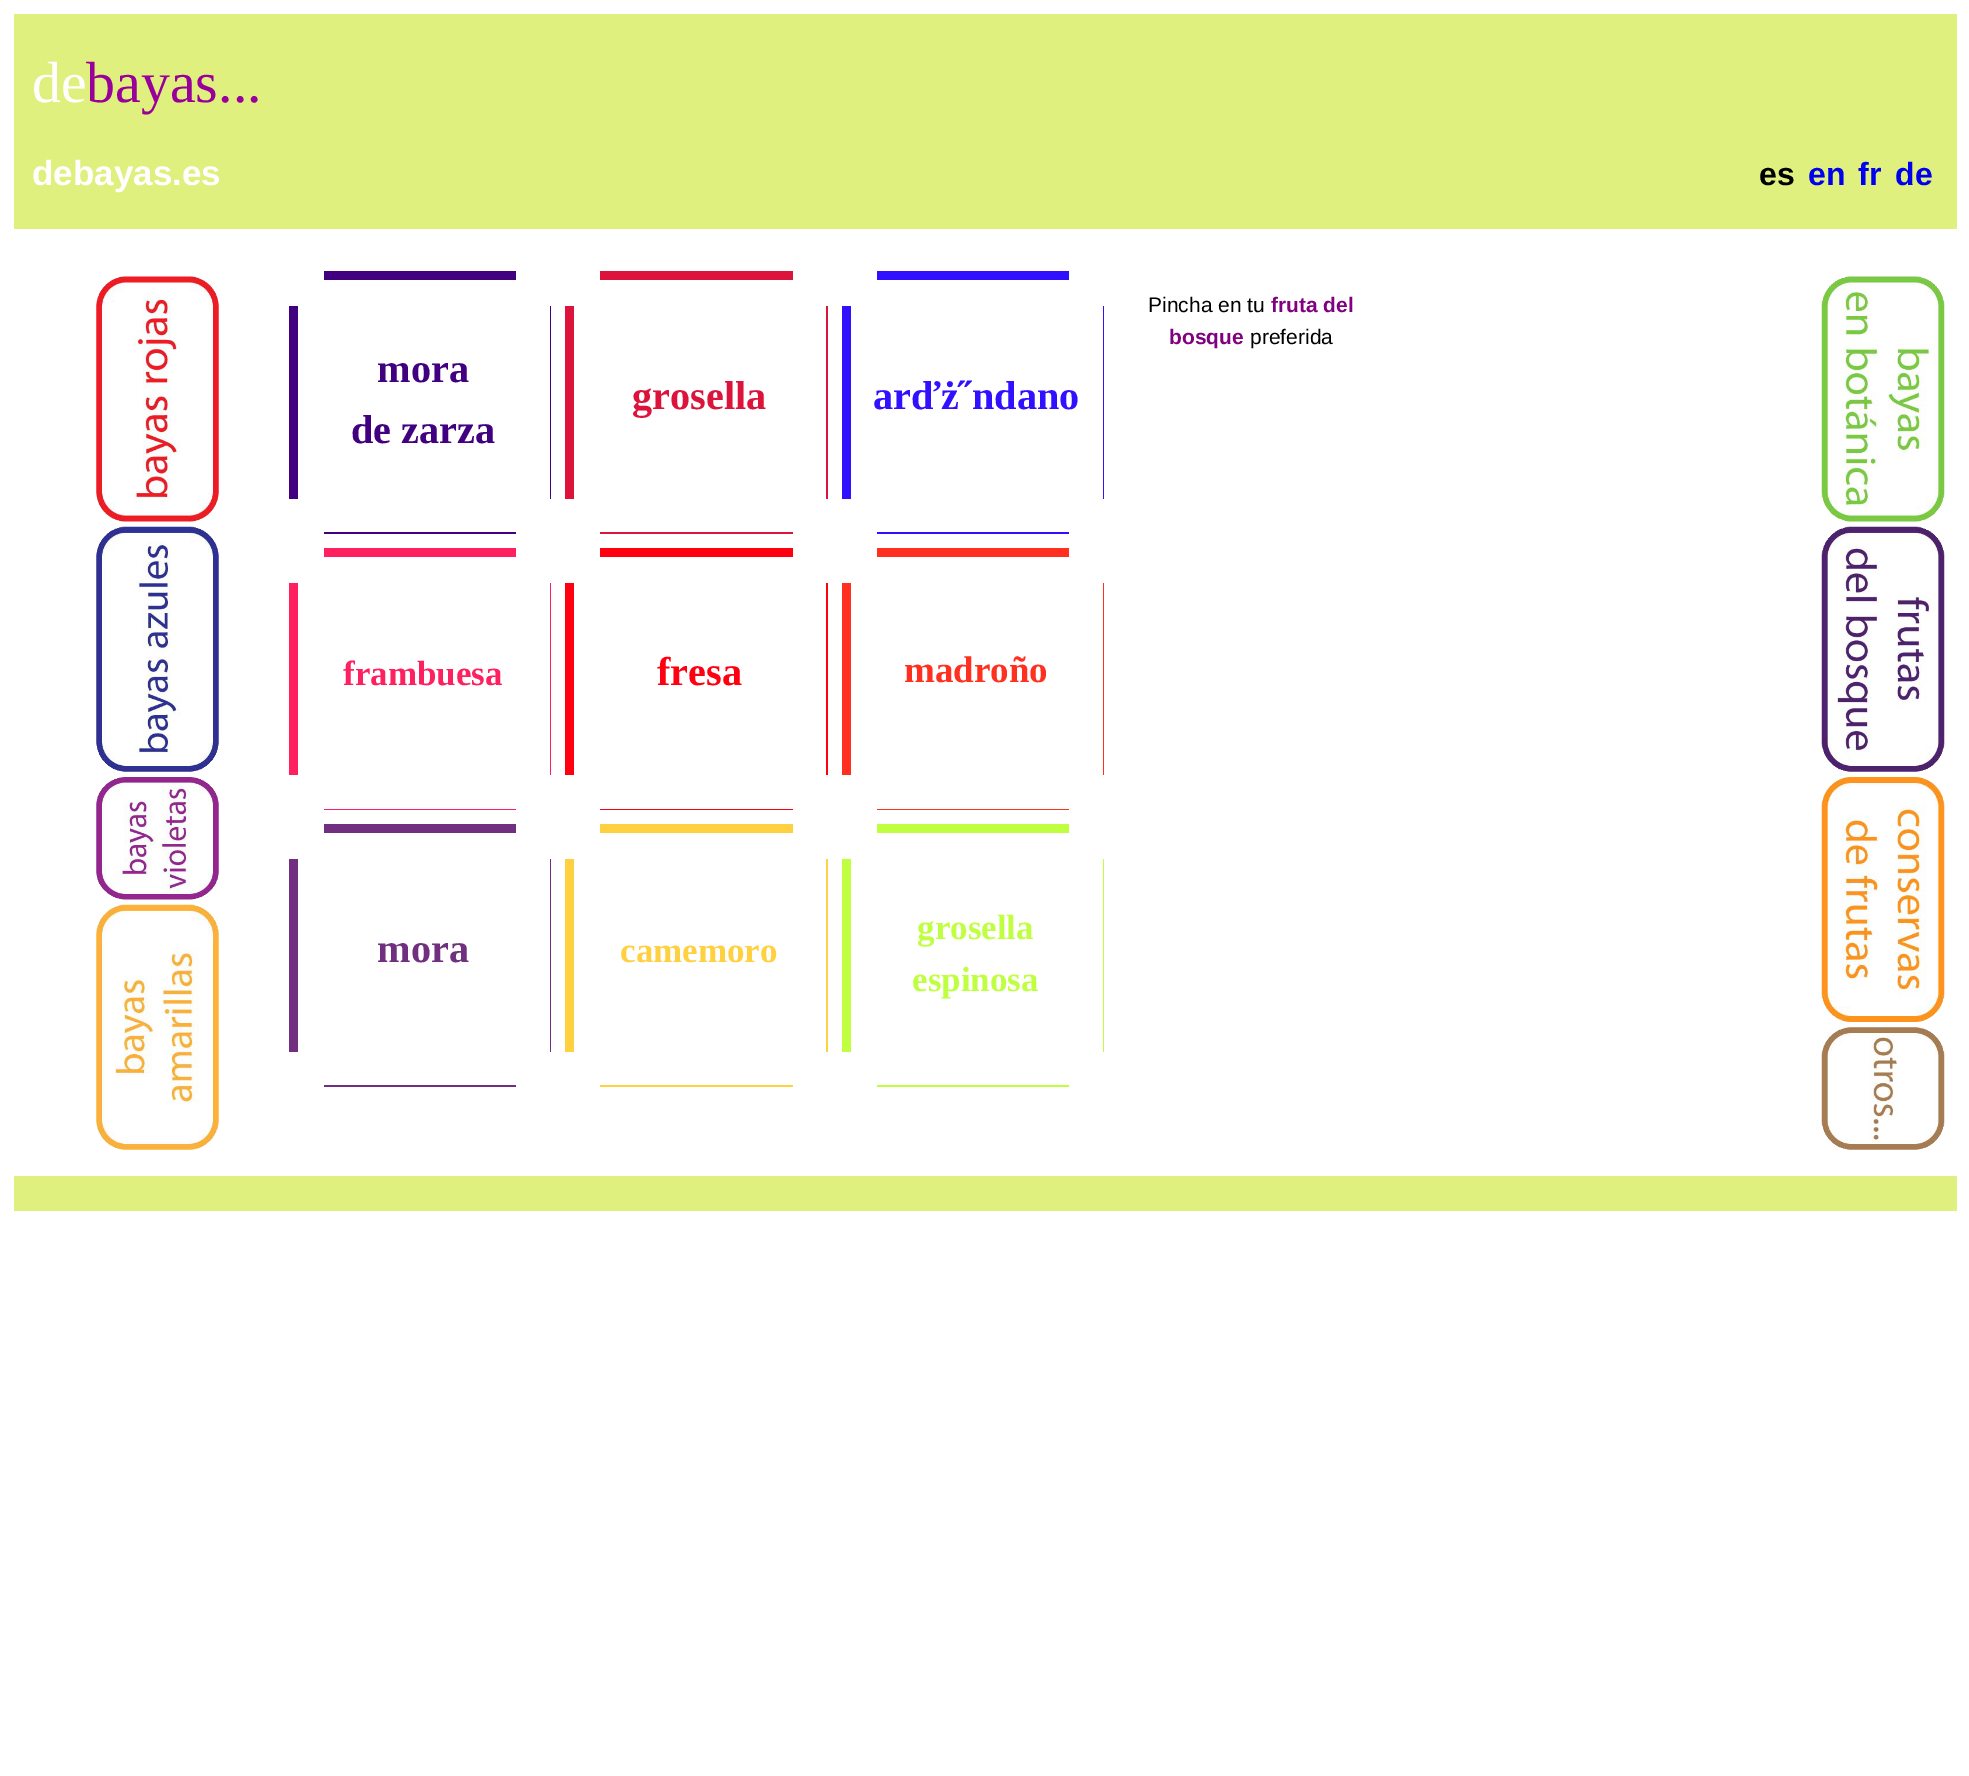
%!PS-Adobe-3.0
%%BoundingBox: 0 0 1969 1776
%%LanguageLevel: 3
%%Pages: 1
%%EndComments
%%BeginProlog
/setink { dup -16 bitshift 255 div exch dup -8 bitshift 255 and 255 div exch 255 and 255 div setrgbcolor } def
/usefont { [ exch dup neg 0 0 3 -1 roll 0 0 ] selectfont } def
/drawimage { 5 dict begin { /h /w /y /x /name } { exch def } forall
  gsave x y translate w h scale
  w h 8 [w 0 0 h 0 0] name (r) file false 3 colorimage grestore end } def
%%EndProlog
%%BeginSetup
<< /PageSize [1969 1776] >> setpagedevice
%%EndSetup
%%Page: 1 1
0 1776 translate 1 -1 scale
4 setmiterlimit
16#FFFFFF setink
0 0 1969 1776 rectfill
16#E0F07F setink
14 14 1943 215 rectfill
/LiberationSerif-Regular 58 usefont
16#FFFFFF setink
32 102 moveto (de) show
16#990099 setink
86 102 moveto (bayas...) show
/LiberationSans-Bold 35 usefont
16#FFFFFF setink
32 185 moveto (debayas.es) show
/LiberationSans-Bold 32 usefont
16#000000 setink
1759 185 moveto (es) show
16#0000EE setink
[
    [(en) 1808 185]
    [(fr) 1858 185]
    [(de) 1895 185]
] { aload pop moveto show } forall
(img1.raw) 96 276 123 246 drawimage
(img2.raw) 96 526 123 246 drawimage
(img3.raw) 96 777 123 123 drawimage
(img4.raw) 96 904 123 246 drawimage
/LiberationSans-Regular 21 usefont
16#000000 setink
1148 312 moveto (Pincha en tu) show
/LiberationSans-Bold 21 usefont
16#800080 setink
1271 312 moveto (fruta del) show
1169 344 moveto (bosque) show
/LiberationSans-Regular 21 usefont
16#000000 setink
1250 344 moveto (preferida) show
[
    [289 271 262 263 16#40007F]
    [298 280 252 252 16#FFFFFF]
    [289 271 35 35 16#FFFFFF]
    [516 271 35 35 16#FFFFFF]
] { aload pop setink rectfill } forall
/LiberationSerif-Bold 40.25 usefont
16#40007F setink
377 382 moveto (mora) show
351 443 moveto (de zarza) show
[
    [289 499 35 35 16#FFFFFF]
    [516 499 35 35 16#FFFFFF]
    [565 271 263 263 16#DC143C]
    [574 280 252 252 16#FFFFFF]
    [565 271 35 35 16#FFFFFF]
    [793 271 35 35 16#FFFFFF]
] { aload pop setink rectfill } forall
16#DC143C setink
632 409 moveto (grosella) show
[
    [565 499 35 35 16#FFFFFF]
    [793 499 35 35 16#FFFFFF]
    [842 271 262 263 16#3010FF]
    [851 280 252 252 16#FFFFFF]
    [842 271 35 35 16#FFFFFF]
    [1069 271 35 35 16#FFFFFF]
] { aload pop setink rectfill } forall
16#3010FF setink
873 409 moveto (arďż˝ndano) show
[
    [842 499 35 35 16#FFFFFF]
    [1069 499 35 35 16#FFFFFF]
    [289 548 262 262 16#FF2060]
    [298 557 252 252 16#FFFFFF]
    [289 548 35 35 16#FFFFFF]
    [516 548 35 35 16#FFFFFF]
] { aload pop setink rectfill } forall
/LiberationSerif-Bold 35 usefont
16#FF2060 setink
343 685 moveto (frambuesa) show
[
    [289 775 35 35 16#FFFFFF]
    [516 775 35 35 16#FFFFFF]
    [565 548 263 262 16#FF0010]
    [574 557 252 252 16#FFFFFF]
    [565 548 35 35 16#FFFFFF]
    [793 548 35 35 16#FFFFFF]
] { aload pop setink rectfill } forall
/LiberationSerif-Bold 40.25 usefont
16#FF0010 setink
657 685 moveto (fresa) show
[
    [565 775 35 35 16#FFFFFF]
    [793 775 35 35 16#FFFFFF]
    [842 548 262 262 16#FF3020]
    [851 557 252 252 16#FFFFFF]
    [842 548 35 35 16#FFFFFF]
    [1069 548 35 35 16#FFFFFF]
] { aload pop setink rectfill } forall
/LiberationSerif-Bold 37 usefont
16#FF3020 setink
904 682 moveto (madroño) show
[
    [842 775 35 35 16#FFFFFF]
    [1069 775 35 35 16#FFFFFF]
    [289 824 262 263 16#70307F]
    [298 833 252 252 16#FFFFFF]
    [289 824 35 35 16#FFFFFF]
    [516 824 35 35 16#FFFFFF]
] { aload pop setink rectfill } forall
/LiberationSerif-Bold 40.25 usefont
16#70307F setink
377 962 moveto (mora) show
[
    [289 1052 35 35 16#FFFFFF]
    [516 1052 35 35 16#FFFFFF]
    [565 824 263 263 16#FFD040]
    [574 833 252 252 16#FFFFFF]
    [565 824 35 35 16#FFFFFF]
    [793 824 35 35 16#FFFFFF]
] { aload pop setink rectfill } forall
/LiberationSerif-Bold 35 usefont
16#FFD040 setink
620 962 moveto (camemoro) show
[
    [565 1052 35 35 16#FFFFFF]
    [793 1052 35 35 16#FFFFFF]
    [842 824 262 263 16#C0FF40]
    [851 833 252 252 16#FFFFFF]
    [842 824 35 35 16#FFFFFF]
    [1069 824 35 35 16#FFFFFF]
] { aload pop setink rectfill } forall
16#C0FF40 setink
917 939 moveto (grosella) show
912 991 moveto (espinosa) show
16#FFFFFF setink
842 1052 35 35 rectfill
1069 1052 35 35 rectfill
(img5.raw) 1821 276 124 246 drawimage
(img6.raw) 1821 526 124 246 drawimage
(img7.raw) 1821 777 124 245 drawimage
(img8.raw) 1821 1027 124 123 drawimage
16#E0F07F setink
14 1176 1943 35 rectfill
showpage
%%EOF
